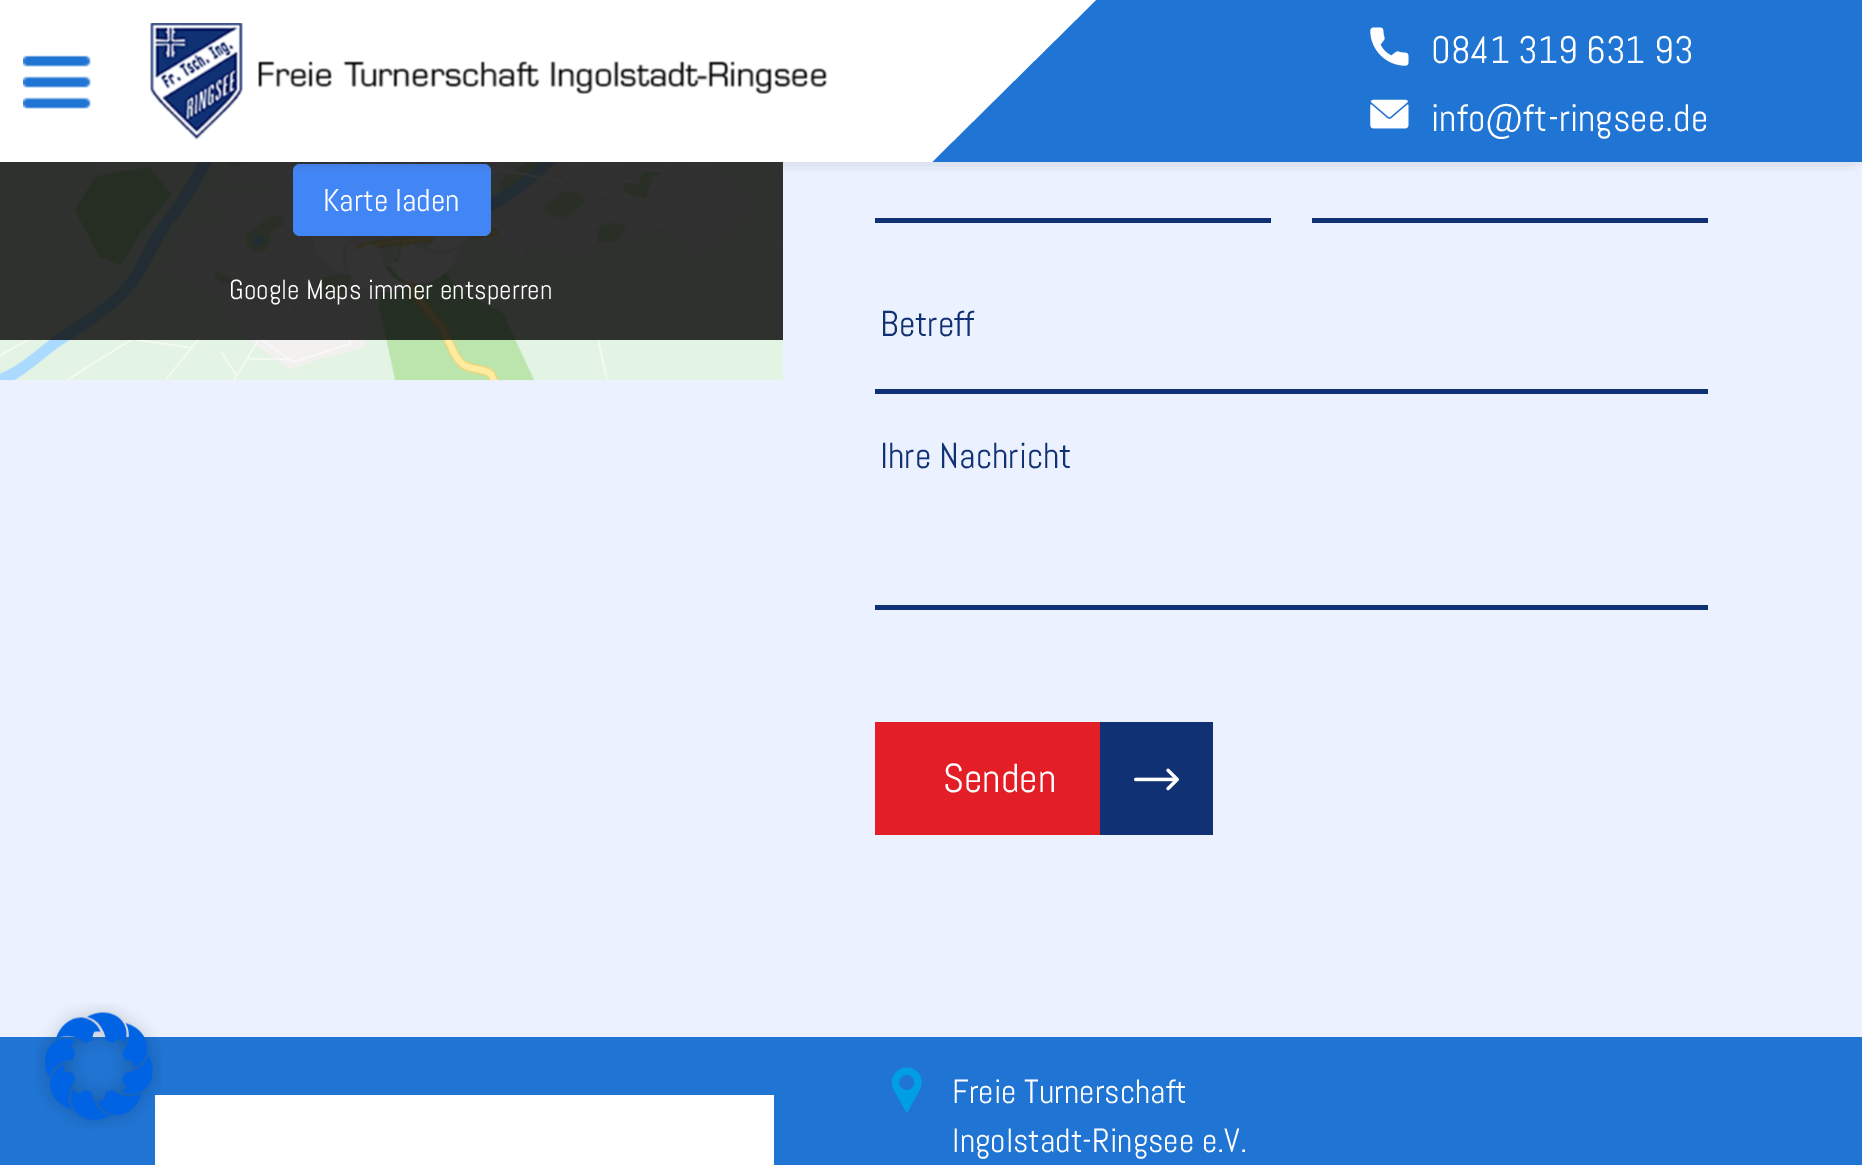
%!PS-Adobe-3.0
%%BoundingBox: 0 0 1862 1165
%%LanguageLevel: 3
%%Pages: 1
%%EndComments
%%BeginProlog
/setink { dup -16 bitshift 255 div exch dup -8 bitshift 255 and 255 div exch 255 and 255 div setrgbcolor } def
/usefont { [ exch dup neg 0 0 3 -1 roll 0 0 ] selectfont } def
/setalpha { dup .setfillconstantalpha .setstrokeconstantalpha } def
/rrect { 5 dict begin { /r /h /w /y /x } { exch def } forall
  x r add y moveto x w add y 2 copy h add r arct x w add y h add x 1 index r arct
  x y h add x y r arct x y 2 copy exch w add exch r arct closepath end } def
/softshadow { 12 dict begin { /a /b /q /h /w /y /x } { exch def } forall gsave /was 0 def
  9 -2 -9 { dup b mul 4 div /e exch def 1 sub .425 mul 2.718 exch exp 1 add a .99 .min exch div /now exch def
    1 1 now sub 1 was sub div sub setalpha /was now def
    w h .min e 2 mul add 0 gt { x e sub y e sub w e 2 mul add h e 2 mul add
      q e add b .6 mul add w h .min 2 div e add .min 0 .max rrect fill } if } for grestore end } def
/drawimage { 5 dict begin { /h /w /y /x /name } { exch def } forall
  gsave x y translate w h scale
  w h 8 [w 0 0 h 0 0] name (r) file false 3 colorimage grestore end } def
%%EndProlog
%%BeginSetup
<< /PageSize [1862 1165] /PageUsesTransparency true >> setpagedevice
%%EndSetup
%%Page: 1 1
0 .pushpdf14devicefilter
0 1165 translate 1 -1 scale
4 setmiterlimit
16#EBF1FE setink
0 0 1862 1165 rectfill
(img5.raw) 0 162 783 219 drawimage
0.8 setalpha
16#000000 setink
0 162 783 178 rectfill
1 setalpha
16#4285F4 setink
293 164 198 72 7 rrect fill
16#333333 setink
11 11 1841 140 0 9 1 softshadow
16#2074D3 setink
932 0 930 162 rectfill
16#FFFFFF setink
0 0 moveto 0 162 lineto 932 162 lineto 1096 0 lineto closepath fill
(img1.raw) 23 55 68 54 drawimage
(img2.raw) 150 23 677 117 drawimage
(img3.raw) 1370 27 39 39 drawimage
/Abel-Regular 38.25 usefont
1431 63 moveto (0841 319 631 93) show
(img4.raw) 1370 99 39 30 drawimage
1431 131 moveto (info@ft-ringsee.de) show
/Abel-Regular 31.5 usefont
323 211 moveto (Karte laden) show
/Abel-Regular 27.5 usefont
229 299 moveto (Google Maps immer entsperren) show
[
    [875 218 396 5 16#103174]
    [1312 218 396 5 16#103174]
    [875 389 833 5 16#103174]
] { aload pop setink rectfill } forall
/Abel-Regular 36 usefont
880 336 moveto (Betreff) show
875 605 833 5 rectfill
880 468 moveto (Ihre Nachricht) show
16#E41E26 setink
875 722 225 113 rectfill
/Abel-Regular 40.5 usefont
16#FFFFFF setink
943 792 moveto (Senden) show
16#103174 setink
1100 722 113 113 rectfill
(img6.raw) 1134 768 45 23 drawimage
16#2074D3 setink
0 1037 1862 128 rectfill
16#FFFFFF setink
155 1095 619 70 rectfill
(img7.raw) 36 1003 126 126 drawimage
(img8.raw) 891 1067 31 46 drawimage
/Abel-Regular 33.75 usefont
952 1103 moveto (Freie Turnerschaft) show
952 1152 moveto (Ingolstadt-Ringsee e.V.) show
.poppdf14devicefilter showpage
%%EOF
